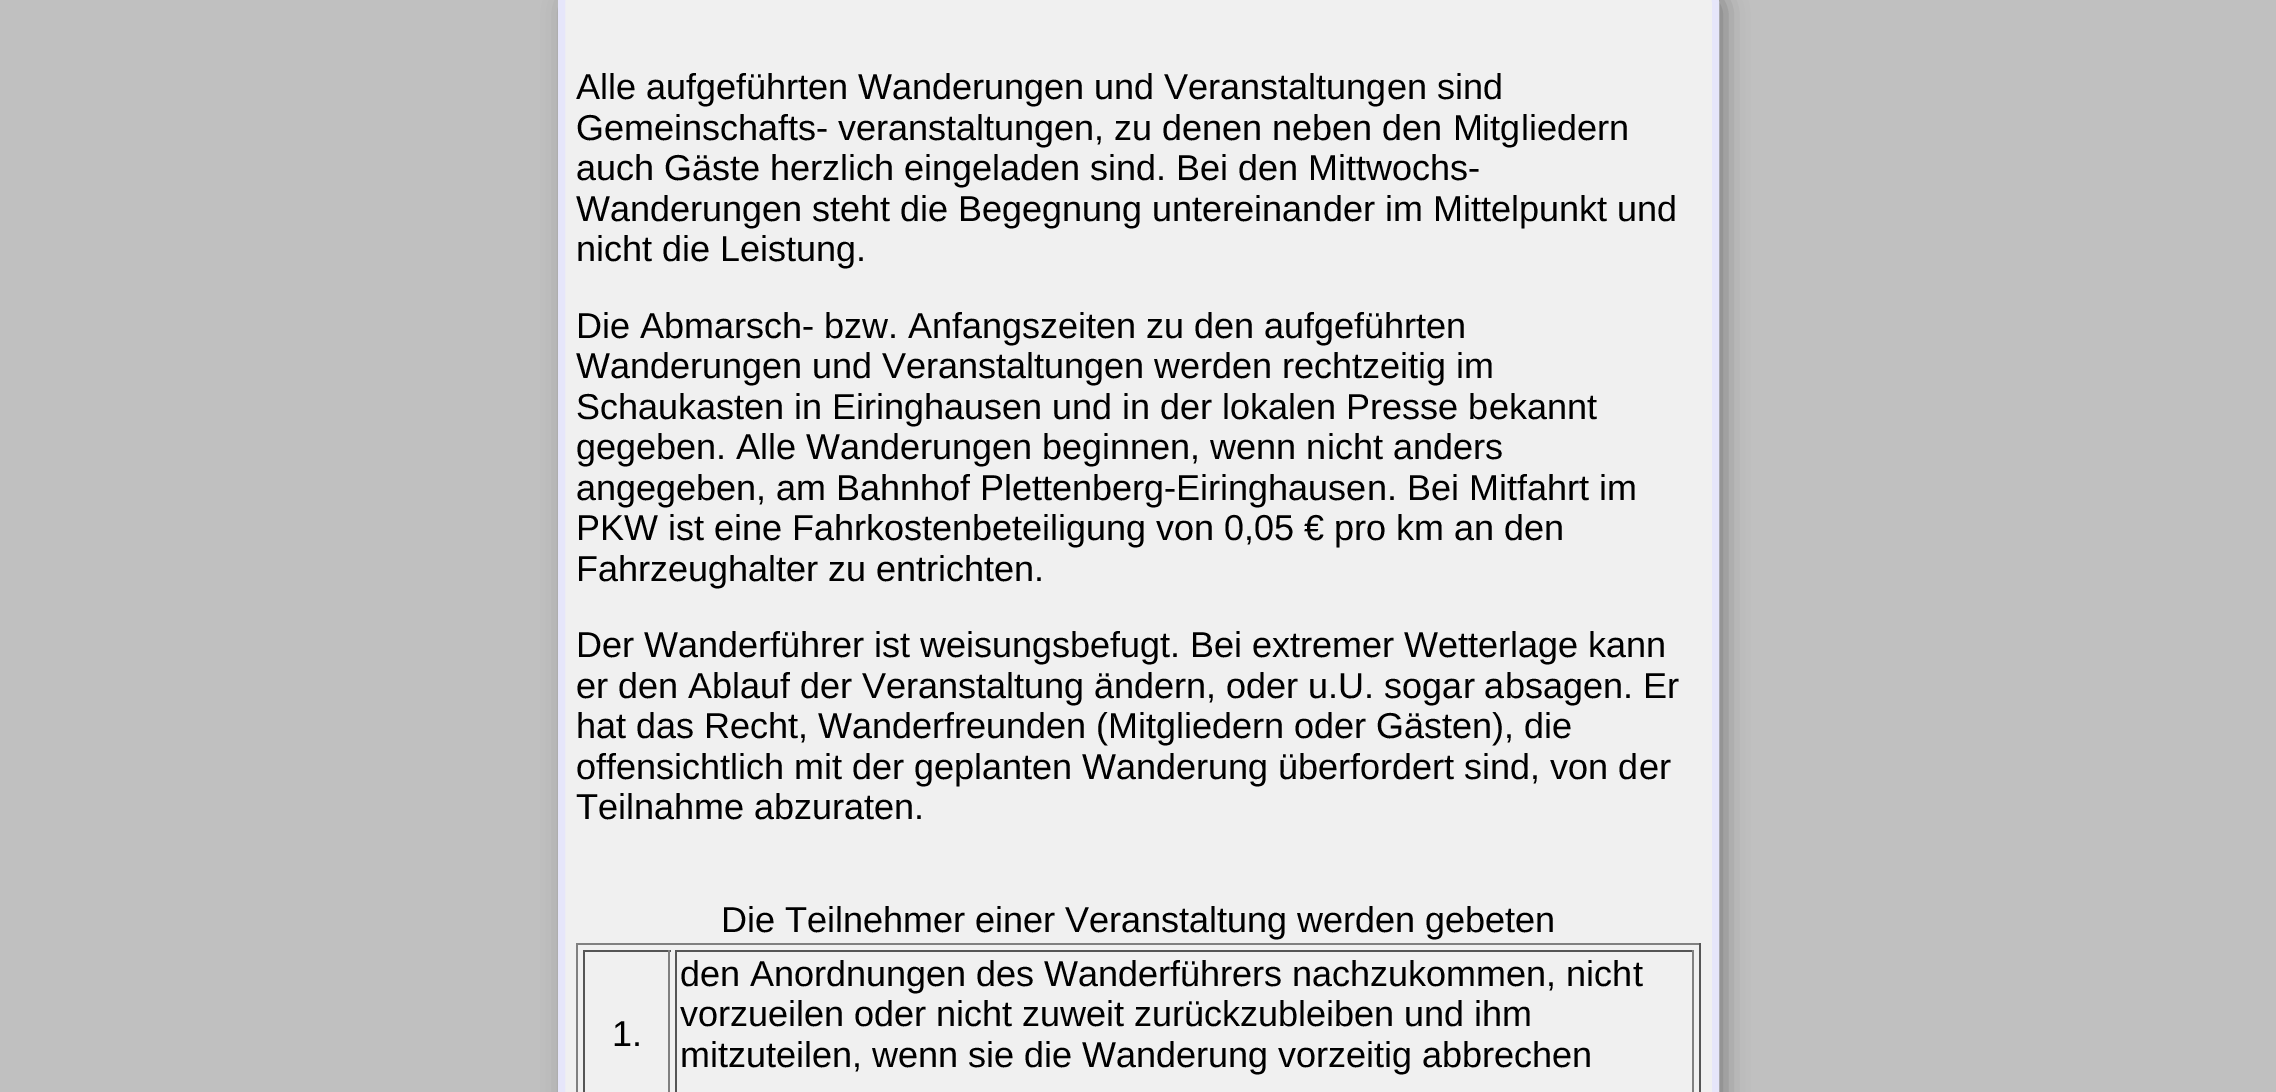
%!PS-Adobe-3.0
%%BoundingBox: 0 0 2276 1092
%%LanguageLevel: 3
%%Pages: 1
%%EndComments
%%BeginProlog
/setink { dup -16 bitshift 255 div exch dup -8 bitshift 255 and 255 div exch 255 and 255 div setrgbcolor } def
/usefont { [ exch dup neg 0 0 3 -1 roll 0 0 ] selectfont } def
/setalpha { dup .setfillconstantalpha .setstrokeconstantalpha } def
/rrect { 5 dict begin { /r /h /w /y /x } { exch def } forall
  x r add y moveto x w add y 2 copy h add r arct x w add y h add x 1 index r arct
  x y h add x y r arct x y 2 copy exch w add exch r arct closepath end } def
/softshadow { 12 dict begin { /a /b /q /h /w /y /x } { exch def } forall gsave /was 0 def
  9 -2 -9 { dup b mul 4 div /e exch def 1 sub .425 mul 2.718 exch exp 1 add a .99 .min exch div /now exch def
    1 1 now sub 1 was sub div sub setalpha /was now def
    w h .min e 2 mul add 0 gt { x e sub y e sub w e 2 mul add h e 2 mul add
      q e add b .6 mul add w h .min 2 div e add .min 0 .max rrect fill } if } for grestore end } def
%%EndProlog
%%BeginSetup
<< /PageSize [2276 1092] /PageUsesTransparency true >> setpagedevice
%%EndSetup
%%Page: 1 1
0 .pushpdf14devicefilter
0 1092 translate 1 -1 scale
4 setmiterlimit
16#C0C0C0 setink
0 0 2276 1092 rectfill
16#808080 setink
565 -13 1161 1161 23 11 1 softshadow
16#F0F0F0 setink
561.5 -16.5 1154 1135 19.5 rrect gsave fill grestore
16#E6E6FA setink
7 setlinewidth
stroke
/LiberationSans-Regular 36 usefont
16#000000 setink
[
    [(Alle aufgeführten Wanderungen und Veranstaltungen sind) 576 99]
    [(Gemeinschafts- veranstaltungen, zu denen neben den Mitgliedern) 576 140]
    [(auch Gäste herzlich eingeladen sind. Bei den Mittwochs-) 576 180]
    [(Wanderungen steht die Begegnung untereinander im Mittelpunkt und) 576 221]
    [(nicht die Leistung.) 576 261]
    [(Die Abmarsch- bzw. Anfangszeiten zu den aufgeführten) 576 338]
    [(Wanderungen und Veranstaltungen werden rechtzeitig im) 576 378]
    [(Schaukasten in Eiringhausen und in der lokalen Presse bekannt) 576 419]
    [(gegeben. Alle Wanderungen beginnen, wenn nicht anders) 576 459]
    [(angegeben, am Bahnhof Plettenberg-Eiringhausen. Bei Mitfahrt im) 576 500]
    [(PKW ist eine Fahrkostenbeteiligung von 0,05 € pro km an den) 576 540]
    [(Fahrzeughalter zu entrichten.) 576 581]
    [(Der Wanderführer ist weisungsbefugt. Bei extremer Wetterlage kann) 576 657]
    [(er den Ablauf der Veranstaltung ändern, oder u.U. sogar absagen. Er) 576 698]
    [(hat das Recht, Wanderfreunden \(Mitgliedern oder Gästen\), die) 576 738]
    [(offensichtlich mit der geplanten Wanderung überfordert sind, von der) 576 779]
    [(Teilnahme abzuraten.) 576 819]
    [(Die Teilnehmer einer Veranstaltung werden gebeten) 721 932]
] { aload pop moveto show } forall
[
    [576 943 1125 2 16#808080]
    [1699 943 2 149 16#555555]
    [576 943 2 149 16#808080]
    [583 950 88 2 16#555555]
    [668 950 2 142 16#808080]
    [583 950 2 142 16#555555]
] { aload pop setink rectfill } forall
16#000000 setink
612 1046 moveto (1.) show
[
    [675 950 1019 2 16#555555]
    [1692 950 2 142 16#808080]
    [675 950 2 142 16#555555]
] { aload pop setink rectfill } forall
16#000000 setink
[
    [(den Anordnungen des Wanderführers nachzukommen, nicht) 680 986]
    [(vorzueilen oder nicht zuweit zurückzubleiben und ihm) 680 1026]
    [(mitzuteilen, wenn sie die Wanderung vorzeitig abbrechen) 680 1067]
] { aload pop moveto show } forall
.poppdf14devicefilter showpage
%%EOF
